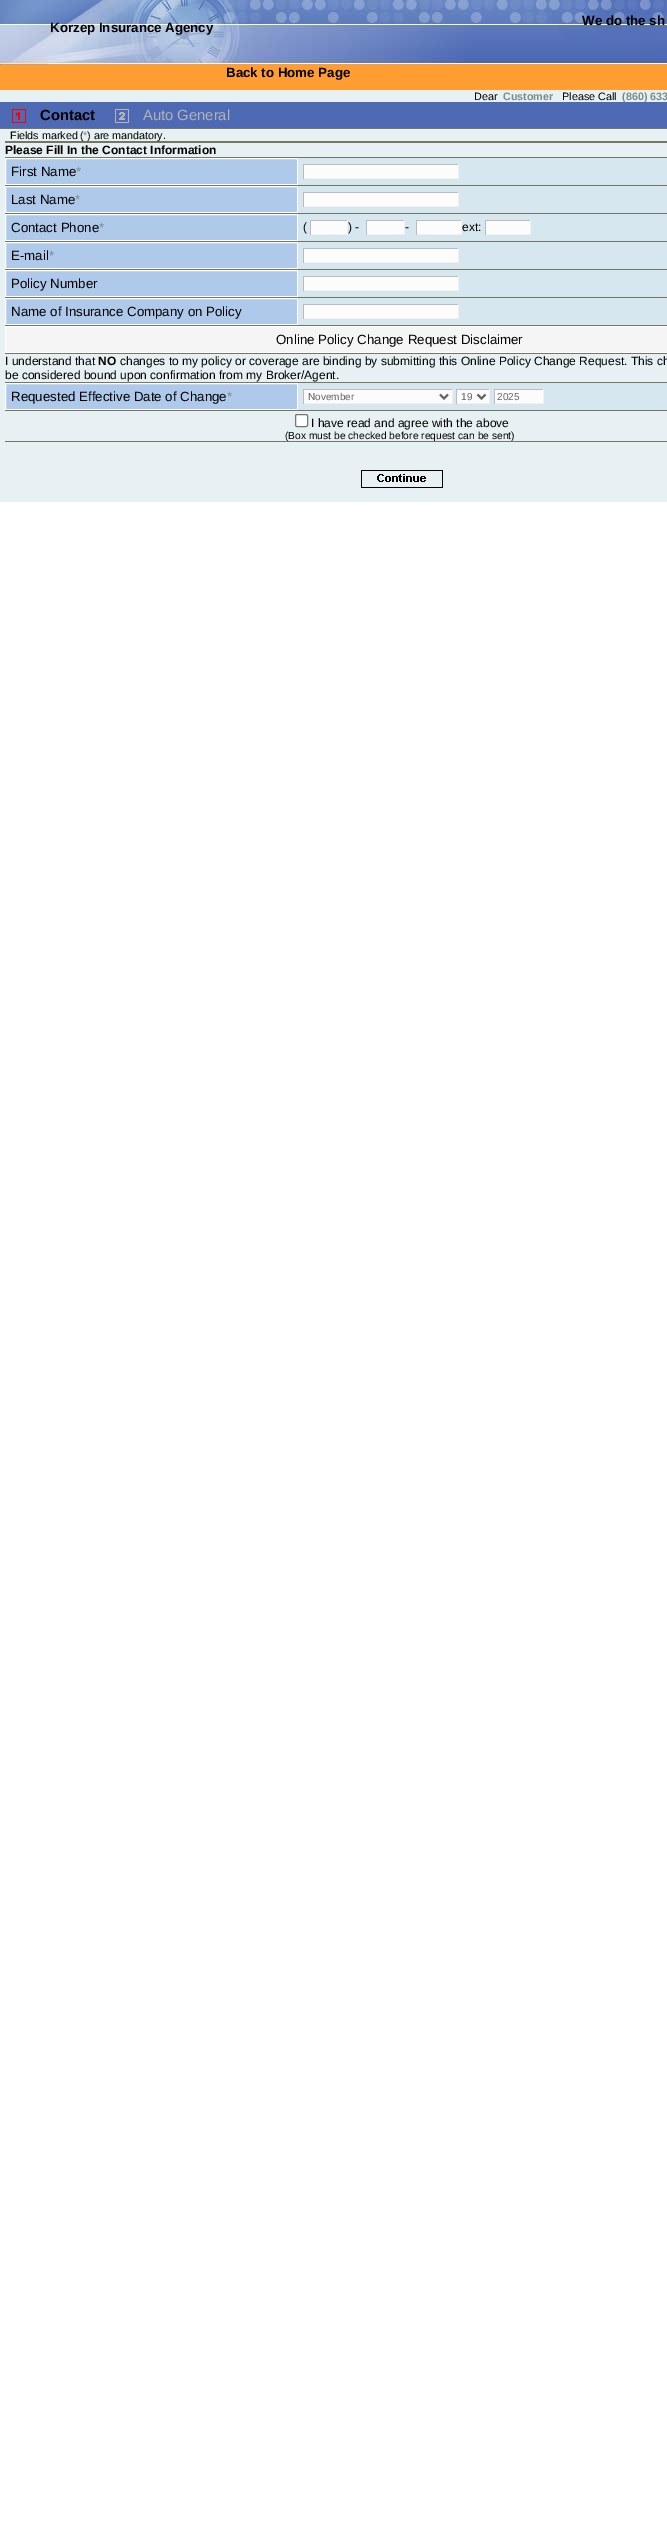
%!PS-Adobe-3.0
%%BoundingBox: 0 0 667 2546
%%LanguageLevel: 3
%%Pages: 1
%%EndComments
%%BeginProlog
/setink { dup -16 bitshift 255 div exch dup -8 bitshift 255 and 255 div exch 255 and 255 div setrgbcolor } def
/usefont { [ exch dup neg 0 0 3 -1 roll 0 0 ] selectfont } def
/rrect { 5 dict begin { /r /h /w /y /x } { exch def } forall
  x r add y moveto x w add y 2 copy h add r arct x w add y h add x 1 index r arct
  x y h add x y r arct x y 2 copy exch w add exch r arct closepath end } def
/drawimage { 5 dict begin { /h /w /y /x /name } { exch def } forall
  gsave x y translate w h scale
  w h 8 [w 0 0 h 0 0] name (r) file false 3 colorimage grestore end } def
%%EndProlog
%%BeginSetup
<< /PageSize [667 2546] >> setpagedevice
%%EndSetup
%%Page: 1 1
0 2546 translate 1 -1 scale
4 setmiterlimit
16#FFFFFF setink
0 0 667 2546 rectfill
(img1.raw) 0 0 667 90 drawimage
/LiberationSans-Bold 13.3 usefont
16#000000 setink
[
    [(We do the sh) 582 25]
    [(Korzep Insurance Agency) 50 32]
    [(Back to Home Page) 226 77]
] { aload pop moveto show } forall
16#E7F1F3 setink
0 90 667 412 rectfill
/LiberationSans-Regular 10.75 usefont
16#000000 setink
474 100 moveto (Dear) show
/LiberationSans-Bold 10.75 usefont
16#798B8B setink
503 100 moveto (Customer) show
/LiberationSans-Regular 10.75 usefont
16#000000 setink
562 100 moveto (Please Call) show
16#4E6AB5 setink
0 102 667 26 rectfill
/LiberationSans-Bold 10.75 usefont
16#798B8B setink
622 100 moveto (\(860\) 633) show
(img2.raw) 12 109 14 14 drawimage
/LiberationSans-Bold 14.75 usefont
16#000000 setink
40 120 moveto (Contact) show
(img3.raw) 115 109 14 14 drawimage
/LiberationSans-Regular 14.75 usefont
16#B3B3B3 setink
143 120 moveto (Auto General) show
16#747766 setink
0 128 667 1 rectfill
5 141 662 2 rectfill
/LiberationSans-Regular 10.75 usefont
16#000000 setink
10 139 moveto (Fields marked \() show
16#798B8B setink
83 139 moveto (*) show
16#000000 setink
87 139 moveto (\) are mandatory.) show
/LiberationSans-Bold 12 usefont
5 154 moveto (Please Fill In the Contact Information) show
16#747766 setink
5 157 662 1 rectfill
16#AFC9EA setink
5.5 158.5 moveto 297.5 158.5 lineto 297.5 184.5 lineto 5.5 184.5 lineto closepath gsave fill grestore
16#FFFFFF setink
stroke
/LiberationSans-Regular 13.3 usefont
16#000000 setink
11 176 moveto (First Name) show
16#798B8B setink
76 176 moveto (*) show
[
    [298 158 369 27 16#D7E7F0]
    [304 165 154 13 16#FCFCFC]
    [303 164 156 1 16#C0BABA]
    [458 164 1 15 16#F1F1F1]
    [303 178 156 1 16#F1F1F1]
    [303 164 1 15 16#C0BABA]
    [5 185 662 1 16#747766]
] { aload pop setink rectfill } forall
16#AFC9EA setink
5.5 186.5 moveto 297.5 186.5 lineto 297.5 212.5 lineto 5.5 212.5 lineto closepath gsave fill grestore
16#FFFFFF setink
stroke
16#000000 setink
11 204 moveto (Last Name) show
16#798B8B setink
75 204 moveto (*) show
[
    [298 186 369 27 16#D7E7F0]
    [304 193 154 13 16#FCFCFC]
    [303 192 156 1 16#C0BABA]
    [458 192 1 15 16#F1F1F1]
    [303 206 156 1 16#F1F1F1]
    [303 192 1 15 16#C0BABA]
    [5 213 662 1 16#747766]
] { aload pop setink rectfill } forall
16#AFC9EA setink
5.5 214.5 moveto 297.5 214.5 lineto 297.5 240.5 lineto 5.5 240.5 lineto closepath gsave fill grestore
16#FFFFFF setink
stroke
16#000000 setink
11 232 moveto (Contact Phone) show
16#798B8B setink
99 232 moveto (*) show
16#D7E7F0 setink
298 214 369 27 rectfill
/LiberationSans-Regular 12 usefont
16#000000 setink
303 231 moveto (\() show
[
    [311 221 36 13 16#FCFCFC]
    [310 220 38 1 16#C0BABA]
    [347 220 1 15 16#F1F1F1]
    [310 234 38 1 16#F1F1F1]
    [310 220 1 15 16#C0BABA]
] { aload pop setink rectfill } forall
16#000000 setink
348 231 moveto (\) -) show
[
    [367 221 37 13 16#FCFCFC]
    [366 220 39 1 16#C0BABA]
    [404 220 1 15 16#F1F1F1]
    [366 234 39 1 16#F1F1F1]
    [366 220 1 15 16#C0BABA]
] { aload pop setink rectfill } forall
16#000000 setink
405 231 moveto (-) show
[
    [417 221 44 13 16#FCFCFC]
    [416 220 46 1 16#C0BABA]
    [461 220 1 15 16#F1F1F1]
    [416 234 46 1 16#F1F1F1]
    [416 220 1 15 16#C0BABA]
] { aload pop setink rectfill } forall
16#000000 setink
462 231 moveto (ext:) show
[
    [486 221 44 13 16#FCFCFC]
    [485 220 46 1 16#C0BABA]
    [530 220 1 15 16#F1F1F1]
    [485 234 46 1 16#F1F1F1]
    [485 220 1 15 16#C0BABA]
    [5 241 662 1 16#747766]
] { aload pop setink rectfill } forall
16#AFC9EA setink
5.5 242.5 moveto 297.5 242.5 lineto 297.5 268.5 lineto 5.5 268.5 lineto closepath gsave fill grestore
16#FFFFFF setink
stroke
/LiberationSans-Regular 13.3 usefont
16#000000 setink
11 260 moveto (E-mail) show
16#798B8B setink
49 260 moveto (*) show
[
    [298 242 369 27 16#D7E7F0]
    [304 249 154 13 16#FCFCFC]
    [303 248 156 1 16#C0BABA]
    [458 248 1 15 16#F1F1F1]
    [303 262 156 1 16#F1F1F1]
    [303 248 1 15 16#C0BABA]
    [5 269 662 1 16#747766]
] { aload pop setink rectfill } forall
16#AFC9EA setink
5.5 270.5 moveto 297.5 270.5 lineto 297.5 296.5 lineto 5.5 296.5 lineto closepath gsave fill grestore
16#FFFFFF setink
stroke
16#000000 setink
11 288 moveto (Policy Number) show
[
    [298 270 369 27 16#D7E7F0]
    [304 277 154 13 16#FCFCFC]
    [303 276 156 1 16#C0BABA]
    [458 276 1 15 16#F1F1F1]
    [303 290 156 1 16#F1F1F1]
    [303 276 1 15 16#C0BABA]
    [5 297 662 1 16#747766]
] { aload pop setink rectfill } forall
16#AFC9EA setink
5.5 298.5 moveto 297.5 298.5 lineto 297.5 324.5 lineto 5.5 324.5 lineto closepath gsave fill grestore
16#FFFFFF setink
stroke
16#000000 setink
11 316 moveto (Name of Insurance Company on Policy) show
[
    [298 298 369 27 16#D7E7F0]
    [304 305 154 13 16#FCFCFC]
    [303 304 156 1 16#C0BABA]
    [458 304 1 15 16#F1F1F1]
    [303 318 156 1 16#F1F1F1]
    [303 304 1 15 16#C0BABA]
    [5 325 662 1 16#747766]
] { aload pop setink rectfill } forall
16#F5F5F5 setink
5.5 326.5 moveto 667.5 326.5 lineto 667.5 352.5 lineto 5.5 352.5 lineto closepath gsave fill grestore
16#FFFFFF setink
stroke
16#000000 setink
276 344 moveto (Online Policy Change Request Disclaimer) show
16#747766 setink
5 353 662 1 rectfill
/LiberationSans-Regular 12 usefont
16#000000 setink
5 365 moveto (I understand that) show
/LiberationSans-Bold 12 usefont
98 365 moveto (NO) show
/LiberationSans-Regular 12 usefont
120 365 moveto (changes to my policy or coverage are binding by submitting this Online Policy Change Request. This ch) show
5 379 moveto (be considered bound upon confirmation from my Broker/Agent.) show
16#747766 setink
5 382 662 1 rectfill
16#AFC9EA setink
5.5 383.5 moveto 297.5 383.5 lineto 297.5 409.5 lineto 5.5 409.5 lineto closepath gsave fill grestore
16#FFFFFF setink
stroke
/LiberationSans-Regular 13.3 usefont
16#000000 setink
11 401 moveto (Requested Effective Date of Change) show
16#798B8B setink
227 401 moveto (*) show
[
    [298 383 369 27 16#D7E7F0]
    [304 390 148 13 16#FCFCFC]
    [303 389 150 1 16#C0BABA]
    [452 389 1 15 16#F1F1F1]
    [303 403 150 1 16#F1F1F1]
    [303 389 1 15 16#C0BABA]
] { aload pop setink rectfill } forall
16#636363 setink
2 setlinewidth
440 394.5 moveto 444 398.5 lineto 448 394.5 lineto stroke
/LiberationSans-Regular 10 usefont
308 400 moveto (November) show
[
    [457 390 32 13 16#FCFCFC]
    [456 389 34 1 16#C0BABA]
    [489 389 1 15 16#F1F1F1]
    [456 403 34 1 16#F1F1F1]
    [456 389 1 15 16#C0BABA]
] { aload pop setink rectfill } forall
16#636363 setink
477.5 394.5 moveto 481.5 398.5 lineto 485.5 394.5 lineto stroke
461 400 moveto (19) show
[
    [495 390 48 13 16#FCFCFC]
    [494 389 50 1 16#C0BABA]
    [543 389 1 15 16#F1F1F1]
    [494 403 50 1 16#F1F1F1]
    [494 389 1 15 16#C0BABA]
] { aload pop setink rectfill } forall
16#636363 setink
497 400 moveto (2025) show
16#747766 setink
5 410 662 1 rectfill
16#FFFFFF setink
295.5 414.5 12 12 1.5 rrect gsave fill grestore
16#767676 setink
1 setlinewidth
stroke
/LiberationSans-Regular 12 usefont
16#000000 setink
311 427 moveto (I have read and agree with the above) show
16#747766 setink
5 441 662 1 rectfill
/LiberationSans-Regular 10.25 usefont
16#000000 setink
285 439 moveto (\(Box must be checked before request can be sent\)) show
(img4.raw) 361 470 82 18 drawimage
showpage
%%EOF
